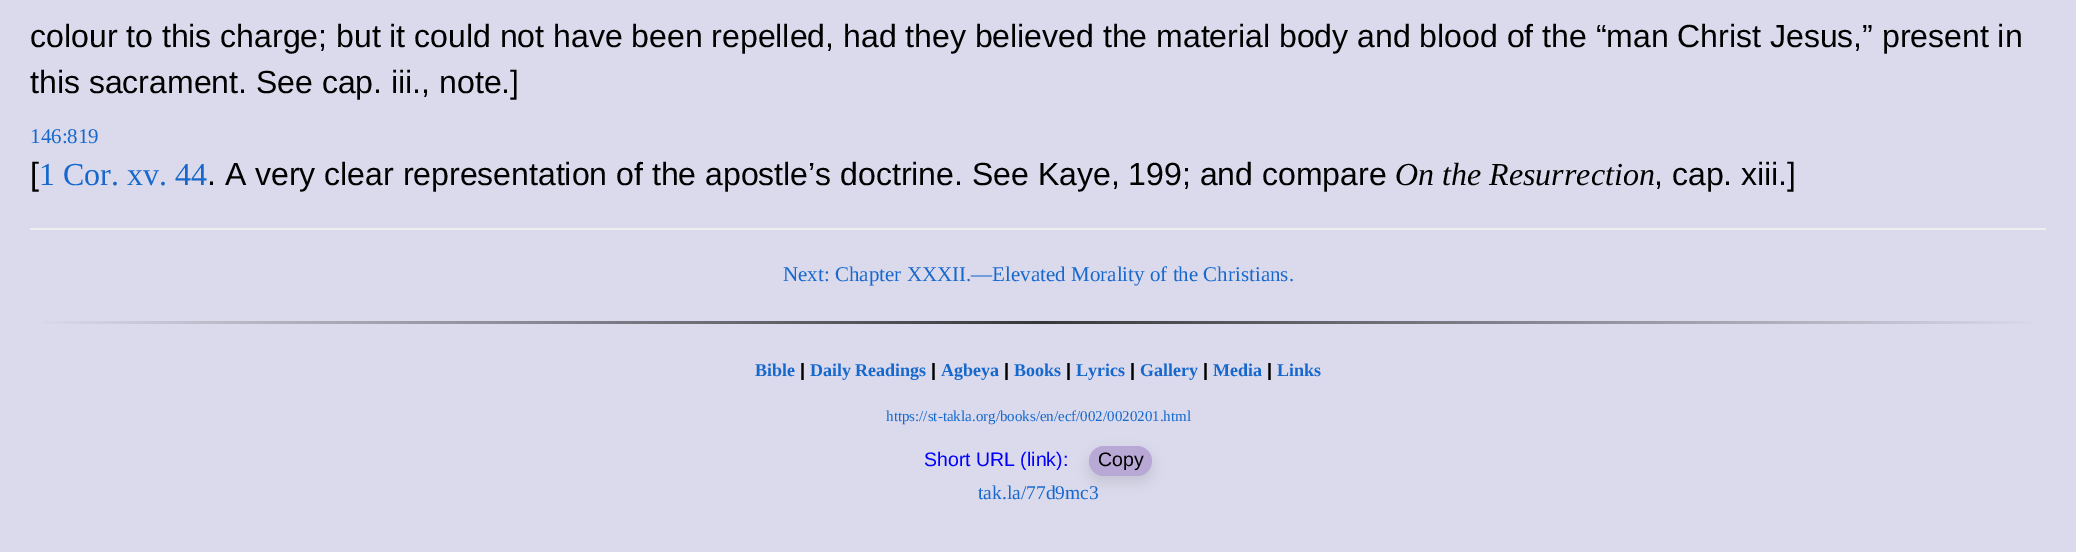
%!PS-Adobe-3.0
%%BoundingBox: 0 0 2076 552
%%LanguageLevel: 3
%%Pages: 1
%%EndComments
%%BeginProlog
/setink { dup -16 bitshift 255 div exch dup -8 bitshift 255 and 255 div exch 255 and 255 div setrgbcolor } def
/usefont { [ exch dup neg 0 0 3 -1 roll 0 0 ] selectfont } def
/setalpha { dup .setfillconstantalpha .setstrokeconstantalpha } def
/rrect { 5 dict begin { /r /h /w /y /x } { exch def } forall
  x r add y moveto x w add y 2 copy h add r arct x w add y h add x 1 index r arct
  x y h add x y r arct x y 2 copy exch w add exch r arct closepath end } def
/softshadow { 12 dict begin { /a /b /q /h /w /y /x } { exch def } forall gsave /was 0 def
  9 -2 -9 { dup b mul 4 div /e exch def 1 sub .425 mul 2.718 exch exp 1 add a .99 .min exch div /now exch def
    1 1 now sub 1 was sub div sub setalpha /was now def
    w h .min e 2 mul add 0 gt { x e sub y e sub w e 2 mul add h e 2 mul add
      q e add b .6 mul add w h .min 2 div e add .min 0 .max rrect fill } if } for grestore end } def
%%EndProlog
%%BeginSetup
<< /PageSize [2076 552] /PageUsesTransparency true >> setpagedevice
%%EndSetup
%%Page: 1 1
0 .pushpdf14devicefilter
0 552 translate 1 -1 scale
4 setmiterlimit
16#DBDAEC setink
0 0 2076 552 rectfill
/LiberationSans-Regular 32 usefont
16#000000 setink
30 47 moveto (colour to this charge; but it could not have been repelled, had they believed the material body and blood of the “man Christ Jesus,” present in) show
30 93 moveto (this sacrament. See cap. iii., note.]) show
/LiberationSerif-Regular 21 usefont
16#1668CD setink
30 143 moveto (146:819) show
/LiberationSans-Regular 32 usefont
16#000000 setink
30 185 moveto ([) show
/LiberationSerif-Regular 32 usefont
16#1668CD setink
39 185 moveto (1 Cor. xv. 44) show
/LiberationSans-Regular 32 usefont
16#000000 setink
207 185 moveto (. A very clear representation of the apostle’s doctrine. See Kaye, 199; and compare) show
/LiberationSerif-Italic 32 usefont
1395 185 moveto (On the Resurrection) show
/LiberationSans-Regular 32 usefont
1654 185 moveto (, cap. xiii.]) show
16#EEEEEE setink
30 228 2016 2 rectfill
/LiberationSerif-Regular 21 usefont
16#1668CD setink
783 281 moveto (Next: Chapter XXXII.—Elevated Morality of the Christians.) show
gsave 44 321 moveto 2032 321 lineto 2032 324 lineto 44 324 lineto closepath clip newpath
<< /ShadingType 2 /ColorSpace /DeviceRGB /Coords [30 323 2046 322] /Extend [true true] /Function << /FunctionType 3 /Domain [0 1] /Functions [<< /FunctionType 2 /Domain [0 1] /C0 [0.859 0.855 0.925] /C1 [0.216 0.216 0.231] /N 1 >> << /FunctionType 2 /Domain [0 1] /C0 [0.216 0.216 0.231] /C1 [0.859 0.855 0.925] /N 1 >>] /Bounds [0.5] /Encode [0 1 0 1] >> >> shfill grestore
/LiberationSerif-Bold 18 usefont
755 376 moveto (Bible) show
/LiberationSans-Bold 18 usefont
16#000000 setink
800 376 moveto (|) show
/LiberationSerif-Bold 18 usefont
16#1668CD setink
810 376 moveto (Daily Readings) show
/LiberationSans-Bold 18 usefont
16#000000 setink
931 376 moveto (|) show
/LiberationSerif-Bold 18 usefont
16#1668CD setink
941 376 moveto (Agbeya) show
/LiberationSans-Bold 18 usefont
16#000000 setink
1004 376 moveto (|) show
/LiberationSerif-Bold 18 usefont
16#1668CD setink
1014 376 moveto (Books) show
/LiberationSans-Bold 18 usefont
16#000000 setink
1066 376 moveto (|) show
/LiberationSerif-Bold 18 usefont
16#1668CD setink
1076 376 moveto (Lyrics) show
/LiberationSans-Bold 18 usefont
16#000000 setink
1130 376 moveto (|) show
/LiberationSerif-Bold 18 usefont
16#1668CD setink
1140 376 moveto (Gallery) show
/LiberationSans-Bold 18 usefont
16#000000 setink
1203 376 moveto (|) show
/LiberationSerif-Bold 18 usefont
16#1668CD setink
1213 376 moveto (Media) show
/LiberationSans-Bold 18 usefont
16#000000 setink
1267 376 moveto (|) show
/LiberationSerif-Bold 18 usefont
16#1668CD setink
1277 376 moveto (Links) show
/LiberationSerif-Regular 15 usefont
886 421 moveto (https://st-takla.org/books/en/ecf/002/0020201.html) show
/LiberationSans-Regular 19.5 usefont
16#0000FF setink
924 466 moveto (Short URL \(link\):) show
16#000000 setink
1089 452 63 30 15 6 0.1 softshadow
16#B7A8D6 setink
1089 446 63 30 15 rrect fill
16#000000 setink
1098 466 moveto (Copy) show
/LiberationSerif-Regular 19.5 usefont
16#1668CD setink
978 499 moveto (tak.la/77d9mc3) show
.poppdf14devicefilter showpage
%%EOF
